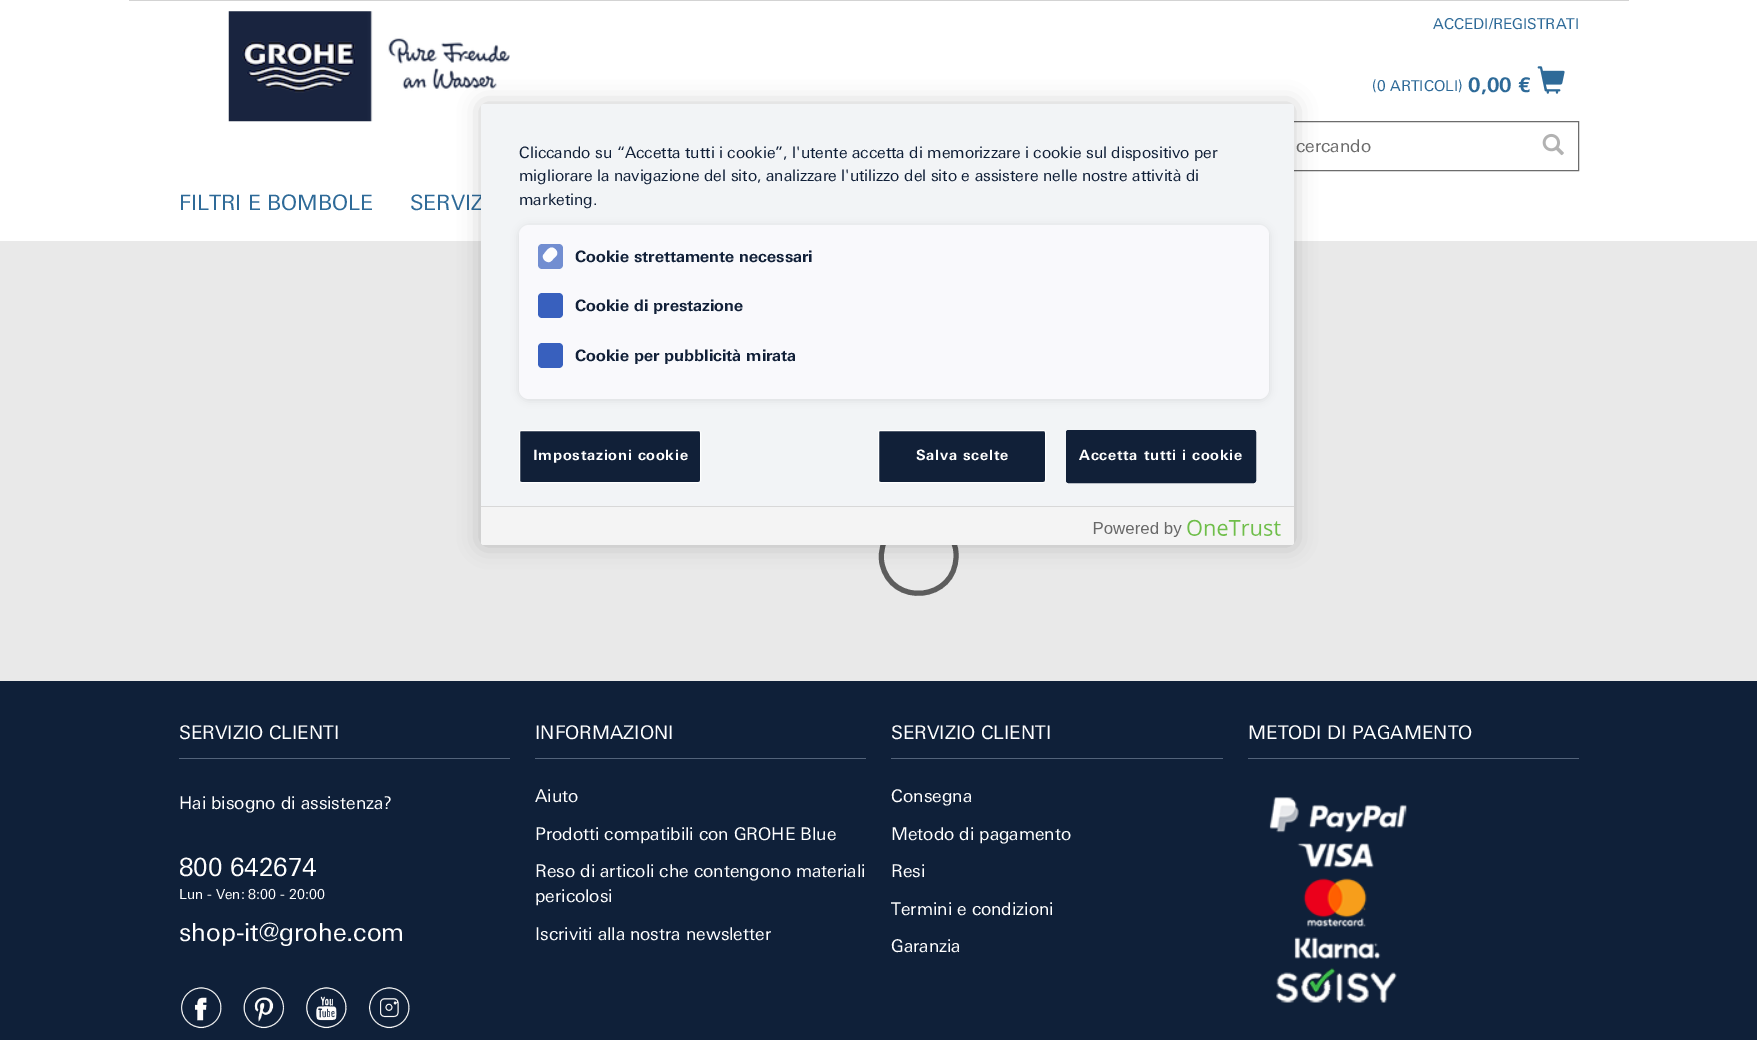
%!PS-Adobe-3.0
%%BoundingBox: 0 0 1757 1040
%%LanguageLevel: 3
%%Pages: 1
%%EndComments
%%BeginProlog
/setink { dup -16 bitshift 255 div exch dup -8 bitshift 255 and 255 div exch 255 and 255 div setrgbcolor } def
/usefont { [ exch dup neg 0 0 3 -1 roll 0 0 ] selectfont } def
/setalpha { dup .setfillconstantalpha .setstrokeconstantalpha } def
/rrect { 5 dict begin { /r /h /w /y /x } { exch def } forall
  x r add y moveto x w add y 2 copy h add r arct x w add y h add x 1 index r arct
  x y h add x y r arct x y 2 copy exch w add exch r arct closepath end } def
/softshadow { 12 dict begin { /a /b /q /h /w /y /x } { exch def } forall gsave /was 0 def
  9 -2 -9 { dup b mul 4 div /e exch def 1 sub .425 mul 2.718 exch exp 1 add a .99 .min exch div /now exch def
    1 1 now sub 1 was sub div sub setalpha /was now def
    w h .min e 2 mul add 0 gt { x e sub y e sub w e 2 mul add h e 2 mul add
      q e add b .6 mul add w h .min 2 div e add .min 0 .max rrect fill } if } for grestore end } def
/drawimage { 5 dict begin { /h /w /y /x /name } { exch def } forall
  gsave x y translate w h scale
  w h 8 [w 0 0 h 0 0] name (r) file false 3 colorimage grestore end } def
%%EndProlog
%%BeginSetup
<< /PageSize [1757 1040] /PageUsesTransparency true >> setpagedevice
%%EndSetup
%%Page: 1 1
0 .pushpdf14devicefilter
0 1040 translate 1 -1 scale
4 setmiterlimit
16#E9E9E9 setink
0 0 1757 1040 rectfill
16#FFFFFF setink
0 0 1757 241 rectfill
(img1.raw) 228 11 282 111 drawimage
/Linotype-Regular 15 usefont
16#2E6A98 setink
1433 29 moveto (ACCEDI/REGISTRATI) show
16#D3D3D3 setink
129 0 1500 1 rectfill
16#2E6A98 setink
[
    [(\() 1372 90]
    [(0 ARTICOLI) 1377 91]
    [(\)) 1458 90]
] { aload pop moveto show } forall
/Linotype-Bold 20 usefont
1468 92 moveto (0,00 €) show
(img2.raw) 1537 66 28 28 drawimage
16#6C6C6C setink
1248.5 121.5 330 49 rectstroke
/Linotype-Regular 17.5 usefont
1296 152 moveto (cercando) show
(img3.raw) 1542 133 22 23 drawimage
/Linotype-Regular 21.25 usefont
16#2E6A98 setink
179 210 moveto (FILTRI E BOMBOLE) show
410 210 moveto (SERVIZ) show
16#5D5D5D setink
5 setlinewidth
945.5 529.5 moveto 952.5 536.5 956.5 546.5 956 556 curveto 956 601 891 607.5 882 563.5 curveto 879.5 551.5 883.5 538.5 892 529.5 curveto stroke
16#0F2039 setink
0 681 1757 359 rectfill
16#53637A setink
179 758 331 1 rectfill
/Linotype-Regular 18.75 usefont
16#FFFFFF setink
179 739 moveto (SERVIZIO CLIENTI) show
/Linotype-Regular 17.5 usefont
179 809 moveto (Hai bisogno di assistenza?) show
/Linotype-Regular 25 usefont
179 876 moveto (800 642674) show
/Linotype-Regular 13.75 usefont
179 899 moveto (Lun - Ven: 8:00 - 20:00) show
/Linotype-Regular 25 usefont
179 941 moveto (shop-it@grohe.com) show
(img4.raw) 181 987 41 42 drawimage
(img5.raw) 243 987 42 42 drawimage
(img6.raw) 306 987 41 42 drawimage
(img7.raw) 368 987 42 42 drawimage
16#53637A setink
535 758 331 1 rectfill
/Linotype-Regular 18.75 usefont
16#FFFFFF setink
535 739 moveto (INFORMAZIONI) show
/Linotype-Regular 17.5 usefont
[
    [(Aiuto) 535 802]
    [(Prodotti compatibili con GROHE Blue) 535 840]
    [(Reso di articoli che contengono materiali) 535 877]
    [(pericolosi) 535 902]
    [(Iscriviti alla nostra newsletter) 535 940]
] { aload pop moveto show } forall
16#53637A setink
891 758 332 1 rectfill
/Linotype-Regular 18.75 usefont
16#FFFFFF setink
891 739 moveto (SERVIZIO CLIENTI) show
/Linotype-Regular 17.5 usefont
[
    [(Consegna) 891 802]
    [(Metodo di pagamento) 891 840]
    [(Resi) 891 877]
    [(Termini e condizioni) 891 915]
    [(Garanzia) 891 952]
] { aload pop moveto show } forall
16#53637A setink
1248 758 331 1 rectfill
/Linotype-Regular 18.75 usefont
16#FFFFFF setink
1248 739 moveto (METODI DI PAGAMENTO) show
(img8.raw) 1269 797 138 206 drawimage
16#000000 setink
481 104 813 441 3 11 0.2 softshadow
16#F2F4F6 setink
481 104 813 441 3 rrect fill
/Linotype-Regular 15.75 usefont
16#112038 setink
[
    [(Cliccando su “Accetta tutti i cookie”, l'utente accetta di memorizzare i cookie sul dispositivo per) 519 158]
    [(migliorare la navigazione del sito, analizzare l'utilizzo del sito e assistere nelle nostre attività di) 519 181]
    [(marketing.) 519 205]
] { aload pop moveto show } forall
16#000000 setink
519 226 750 174 10 4 0.1 softshadow
16#F9F9FC setink
519 225 750 174 10 rrect fill
16#728ED1 setink
542 244 moveto 559 244 lineto 561 244 563 246 563 248 curveto 563 265 lineto 563 267 561 269 559 269 curveto 542 269 lineto 540 269 538 267 538 265 curveto 538 248 lineto 538 246 540 244 542 244 curveto closepath fill
16#FDFDFE setink
544 254 moveto 547 250 551 244 556 250 curveto 557 251 557.5 253 557 254.5 curveto 556.5 256 554.5 257.5 553.5 258.5 curveto 552.5 260 551 261.5 549.5 262 curveto 545.5 263 540.5 257 544 254 curveto closepath fill
/Linotype-Bold 15.75 usefont
16#112038 setink
575 262 moveto (Cookie strettamente necessari) show
16#3860BE setink
542 293 moveto 559 293 lineto 561 293 563 295 563 297 curveto 563 314 lineto 563 316 561 318 559 318 curveto 542 318 lineto 540 318 538 316 538 314 curveto 538 297 lineto 538 295 540 293 542 293 curveto closepath fill
16#112038 setink
575 311 moveto (Cookie di prestazione) show
16#3860BE setink
542 343 moveto 559 343 lineto 561 343 563 345 563 347 curveto 563 364 lineto 563 366 561 368 559 368 curveto 542 368 lineto 540 368 538 366 538 364 curveto 538 347 lineto 538 345 540 343 542 343 curveto closepath fill
16#112038 setink
575 361 moveto (Cookie per pubblicità mirata) show
519.5 430.5 181 52 2 rrect gsave fill grestore
16#FFFFFF setink
1 setlinewidth
stroke
/Linotype-Bold 14.25 usefont
533 460 moveto 0.75 0 (Impostazioni cookie) ashow
16#112038 setink
878.5 430.5 167 52 2 rrect gsave fill grestore
16#FFFFFF setink
stroke
916 460 moveto 0.75 0 (Salva scelte) ashow
16#112038 setink
1066.5 430.5 189 52 2 rrect gsave fill grestore
stroke
16#FFFFFF setink
1079 460 moveto 0.75 0 (Accetta tutti i cookie) ashow
16#F4F4F4 setink
481 506 moveto 1294 506 lineto 1294 542 lineto 1294 543.5 1292.5 545 1291 545 curveto 484 545 lineto 482.5 545 481 543.5 481 542 curveto closepath fill
16#D8D8D8 setink
481 506 813 1 rectfill
(img9.raw) 1093 519 188 18 drawimage
.poppdf14devicefilter showpage
%%EOF
